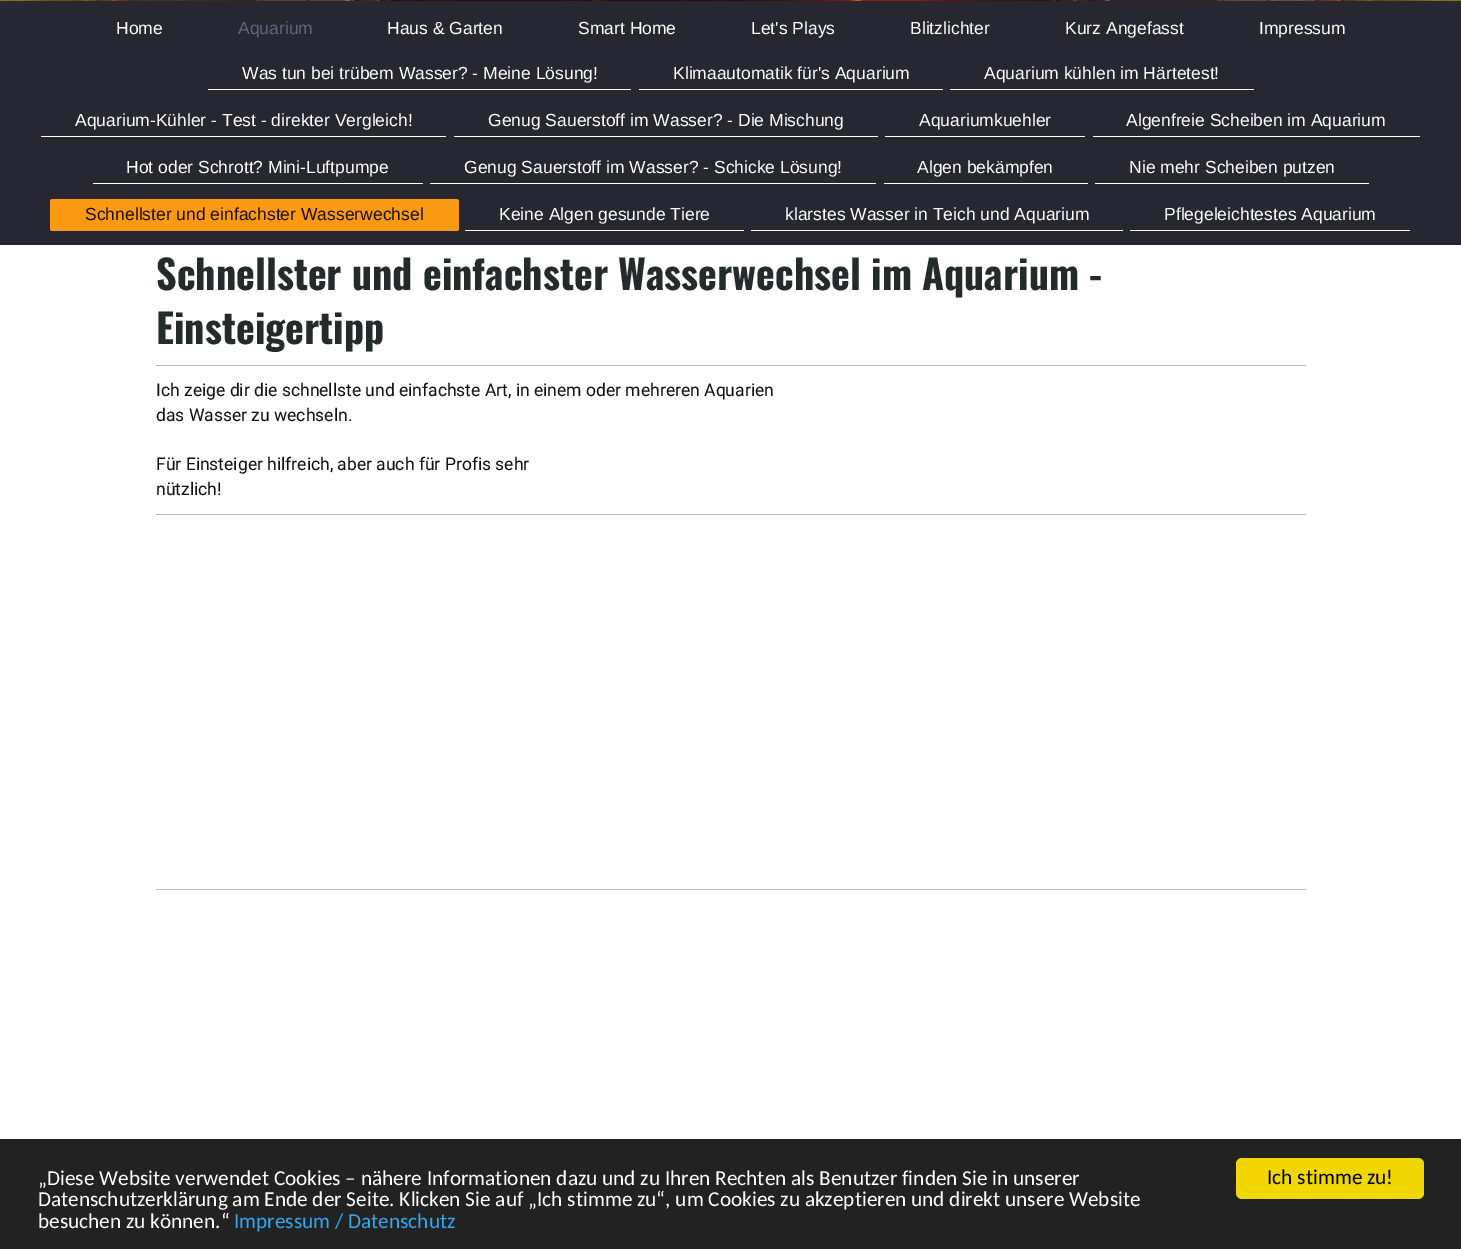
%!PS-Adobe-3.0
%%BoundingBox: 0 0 1461 1249
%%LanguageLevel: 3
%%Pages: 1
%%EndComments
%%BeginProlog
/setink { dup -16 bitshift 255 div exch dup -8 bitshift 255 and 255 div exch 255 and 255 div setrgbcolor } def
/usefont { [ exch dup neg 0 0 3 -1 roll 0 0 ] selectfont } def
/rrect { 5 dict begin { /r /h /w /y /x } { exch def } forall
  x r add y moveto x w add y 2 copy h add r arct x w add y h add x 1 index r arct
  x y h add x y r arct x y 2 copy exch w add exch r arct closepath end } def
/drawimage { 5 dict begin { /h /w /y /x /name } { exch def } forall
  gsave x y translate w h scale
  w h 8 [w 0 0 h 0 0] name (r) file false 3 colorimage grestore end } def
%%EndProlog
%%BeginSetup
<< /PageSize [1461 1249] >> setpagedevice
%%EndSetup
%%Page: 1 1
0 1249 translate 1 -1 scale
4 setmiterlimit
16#FFFFFF setink
0 0 1461 1249 rectfill
16#262730 setink
0 0 1461 245 rectfill
(img1.raw) 0 0 1461 1 drawimage
/LiberationSans-Regular 17.5 usefont
16#FFFFFF setink
116 34 moveto (Home) show
16#63657D setink
238 34 moveto (Aquarium) show
16#FFFFFF setink
[
    [(Haus & Garten) 387 34]
    [(Smart Home) 578 34]
    [(Let's Plays) 751 34]
    [(Blitzlichter) 910 34]
    [(Kurz Angefasst) 1065 34]
    [(Impressum) 1259 34]
] { aload pop moveto show } forall
208 89 423 1 rectfill
242 79 moveto (Was tun bei trübem Wasser? - Meine Lösung!) show
639 89 304 1 rectfill
673 79 moveto (Klimaautomatik für's Aquarium) show
950 89 304 1 rectfill
984 79 moveto (Aquarium kühlen im Härtetest!) show
41 136 405 1 rectfill
75 126 moveto (Aquarium-Kühler - Test - direkter Vergleich!) show
454 136 424 1 rectfill
488 126 moveto (Genug Sauerstoff im Wasser? - Die Mischung) show
885 136 200 1 rectfill
919 126 moveto (Aquariumkuehler) show
1093 136 327 1 rectfill
1126 126 moveto (Algenfreie Scheiben im Aquarium) show
93 183 330 1 rectfill
126 173 moveto (Hot oder Schrott? Mini-Luftpumpe) show
430 183 446 1 rectfill
464 173 moveto (Genug Sauerstoff im Wasser? - Schicke Lösung!) show
884 183 204 1 rectfill
917 173 moveto (Algen bekämpfen) show
1095 183 274 1 rectfill
1129 173 moveto (Nie mehr Scheiben putzen) show
16#FB9910 setink
50 199 409 32 2.5 rrect fill
51 230 407 1 rectfill
16#190F02 setink
85 220 moveto (Schnellster und einfachster Wasserwechsel) show
16#FFFFFF setink
465 230 279 1 rectfill
499 220 moveto (Keine Algen gesunde Tiere) show
751 230 372 1 rectfill
785 220 moveto (klarstes Wasser in Teich und Aquarium) show
1130 230 280 1 rectfill
1164 220 moveto (Pflegeleichtestes Aquarium) show
/Oswald-Bold 40 usefont
16#242B2B setink
156 290 moveto (Schnellster und einfachster Wasserwechsel im Aquarium -) show
156 344 moveto (Einsteigertipp) show
16#BABABA setink
156 365 1150 1 rectfill
/Roboto-Regular 17.5 usefont
16#111111 setink
[
    [(Ich zeige dir die schnellste und einfachste Art, in einem oder mehreren Aquarien) 156 396]
    [(das Wasser zu wechseln.) 156 421]
    [(Für Einsteiger hilfreich, aber auch für Profis sehr) 156 470]
    [(nützlich!) 156 495]
] { aload pop moveto show } forall
[
    [156 514 1150 1 16#BABABA]
    [156 889 1150 1 16#BABABA]
    [0 1139 1461 110 16#222222]
] { aload pop setink rectfill } forall
/Carlito-Regular 21.25 usefont
16#FFFFFF setink
[
    [(„Diese Website verwendet Cookies – nähere Informationen dazu und zu Ihren Rechten als Benutzer finden Sie in unserer) 38 1185]
    [(Datenschutzerklärung am Ende der Seite. Klicken Sie auf „Ich stimme zu“, um Cookies zu akzeptieren und direkt unsere Website) 38 1206]
    [(besuchen zu können.“) 38 1228]
] { aload pop moveto show } forall
16#31A8F0 setink
234 1228 moveto (Impressum / Datenschutz) show
16#F1D600 setink
1236 1158 188 41 6 rrect fill
16#000000 setink
1267 1184 moveto (Ich stimme zu!) show
showpage
%%EOF
